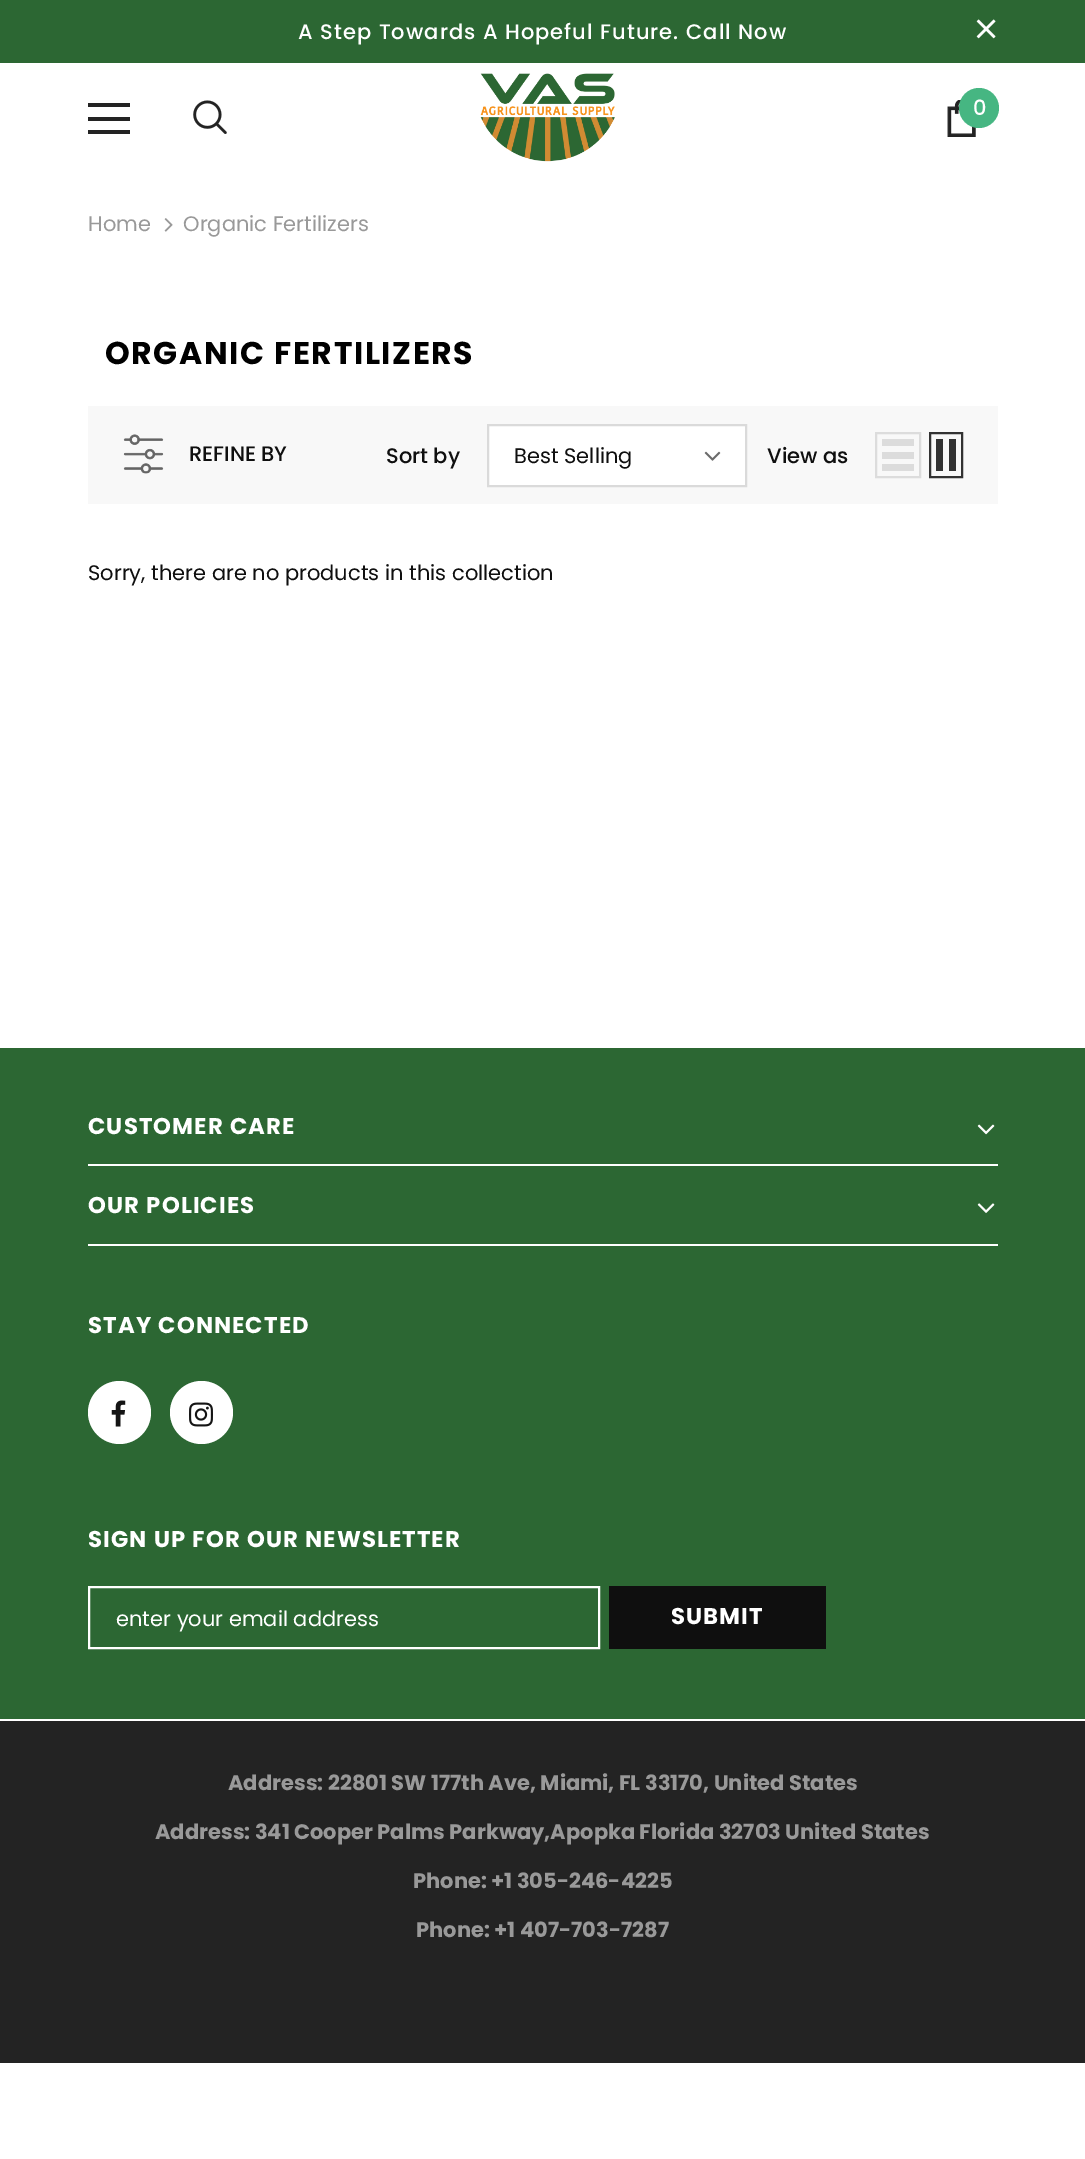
%!PS-Adobe-3.0
%%BoundingBox: 0 0 1085 2159
%%LanguageLevel: 3
%%Pages: 1
%%EndComments
%%BeginProlog
/setink { dup -16 bitshift 255 div exch dup -8 bitshift 255 and 255 div exch 255 and 255 div setrgbcolor } def
/usefont { [ exch dup neg 0 0 3 -1 roll 0 0 ] selectfont } def
/disc { newpath 0 360 arc closepath } def
/drawimage { 5 dict begin { /h /w /y /x /name } { exch def } forall
  gsave x y translate w h scale
  w h 8 [w 0 0 h 0 0] name (r) file false 3 colorimage grestore end } def
%%EndProlog
%%BeginSetup
<< /PageSize [1085 2159] >> setpagedevice
%%EndSetup
%%Page: 1 1
0 2159 translate 1 -1 scale
4 setmiterlimit
16#FFFFFF setink
0 0 1085 2159 rectfill
16#2C6733 setink
0 0 1085 63 rectfill
/Poppins-Medium 21 usefont
16#FFFFFF setink
298 39 moveto 1.05 0 (A Step Towards A Hopeful Future. Call Now) ashow
(img1.raw) 976 19 20 20 drawimage
[
    [88 103 42 4 16#232323]
    [88 117 42 4 16#232323]
    [88 130 42 4 16#232323]
] { aload pop setink rectfill } forall
(img2.raw) 193 100 34 34 drawimage
(img3.raw) 480 73 135 89 drawimage
(img4.raw) 947 100 29 37 drawimage
16#46B682 setink
979 108 20 disc fill
16#FFFFFF setink
973 115 moveto (0) show
/Poppins-Regular 21 usefont
16#999999 setink
88 231 moveto (Home) show
(img5.raw) 164 218 9 14 drawimage
183 231 moveto (Organic Fertilizers) show
/Poppins-Bold 31.5 usefont
16#000000 setink
105 364 moveto 1.6 0 (ORGANIC FERTILIZERS) ashow
16#F8F8F8 setink
88 406 910 98 rectfill
(img6.raw) 123 434 41 40 drawimage
/Poppins-Medium 21 usefont
16#0F0F0F setink
189 461 moveto (REFINE BY) show
386 463 moveto (Sort by) show
16#FFFFFF setink
488 425 moveto 746 425 lineto 746 486 lineto 488 486 lineto closepath gsave fill grestore
16#DADADA setink
2 setlinewidth
stroke
/Poppins-Regular 21 usefont
16#0F0F0F setink
514 463 moveto (Best Selling) show
(img7.raw) 704 451 17 10 drawimage
/Poppins-Medium 21 usefont
767 463 moveto (View as) show
16#DCDCDC setink
876 433 44 44 rectstroke
[
    [882 464 32 7 16#DCDCDC]
    [882 452 32 7 16#DCDCDC]
    [882 439 32 7 16#DCDCDC]
] { aload pop setink rectfill } forall
16#323232 setink
930 433 32 44 rectstroke
949 439 7 32 rectfill
936 439 7 32 rectfill
/Poppins-Regular 21 usefont
16#0F0F0F setink
88 580 moveto (Sorry, there are no products in this collection) show
16#2C6733 setink
0 1048 1085 671 rectfill
16#FFFFFF setink
88 1164 910 2 rectfill
/Poppins-Bold 22.75 usefont
88 1134 moveto 1.15 0 (CUSTOMER CARE) ashow
(img8.raw) 977 1124 18 11 drawimage
88 1244 910 2 rectfill
88 1213 moveto 1.15 0 (OUR POLICIES) ashow
(img9.raw) 977 1203 18 10 drawimage
88 1333 moveto 1.15 0 (STAY CONNECTED) ashow
119.5 1412.5 31.5 disc fill
(img10.raw) 111 1400 15 27 drawimage
201.5 1412.5 31.5 disc fill
(img11.raw) 189 1402 24 25 drawimage
88 1547 moveto 1.15 0 (SIGN UP FOR OUR NEWSLETTER) ashow
89 1587 510 61 rectstroke
/Poppins-Regular 21 usefont
116 1626 moveto (enter your email address) show
16#0F0F0F setink
609 1586 217 63 rectfill
/Poppins-Bold 22.75 usefont
16#FFFFFF setink
671 1624 moveto 1.15 0 (SUBMIT) ashow
16#232323 setink
0 1721 1085 342 rectfill
/Poppins-Bold 21 usefont
16#999999 setink
[
    [(Address: 22801 SW 177th Ave, Miami, FL 33170, United States) 228 1790]
    [(Address: 341 Cooper Palms Parkway,Apopka Florida 32703 United States) 155 1839]
    [(Phone: +1 305-246-4225) 413 1888]
    [(Phone: +1 407-703-7287) 416 1937]
] { aload pop moveto show } forall
showpage
%%EOF
